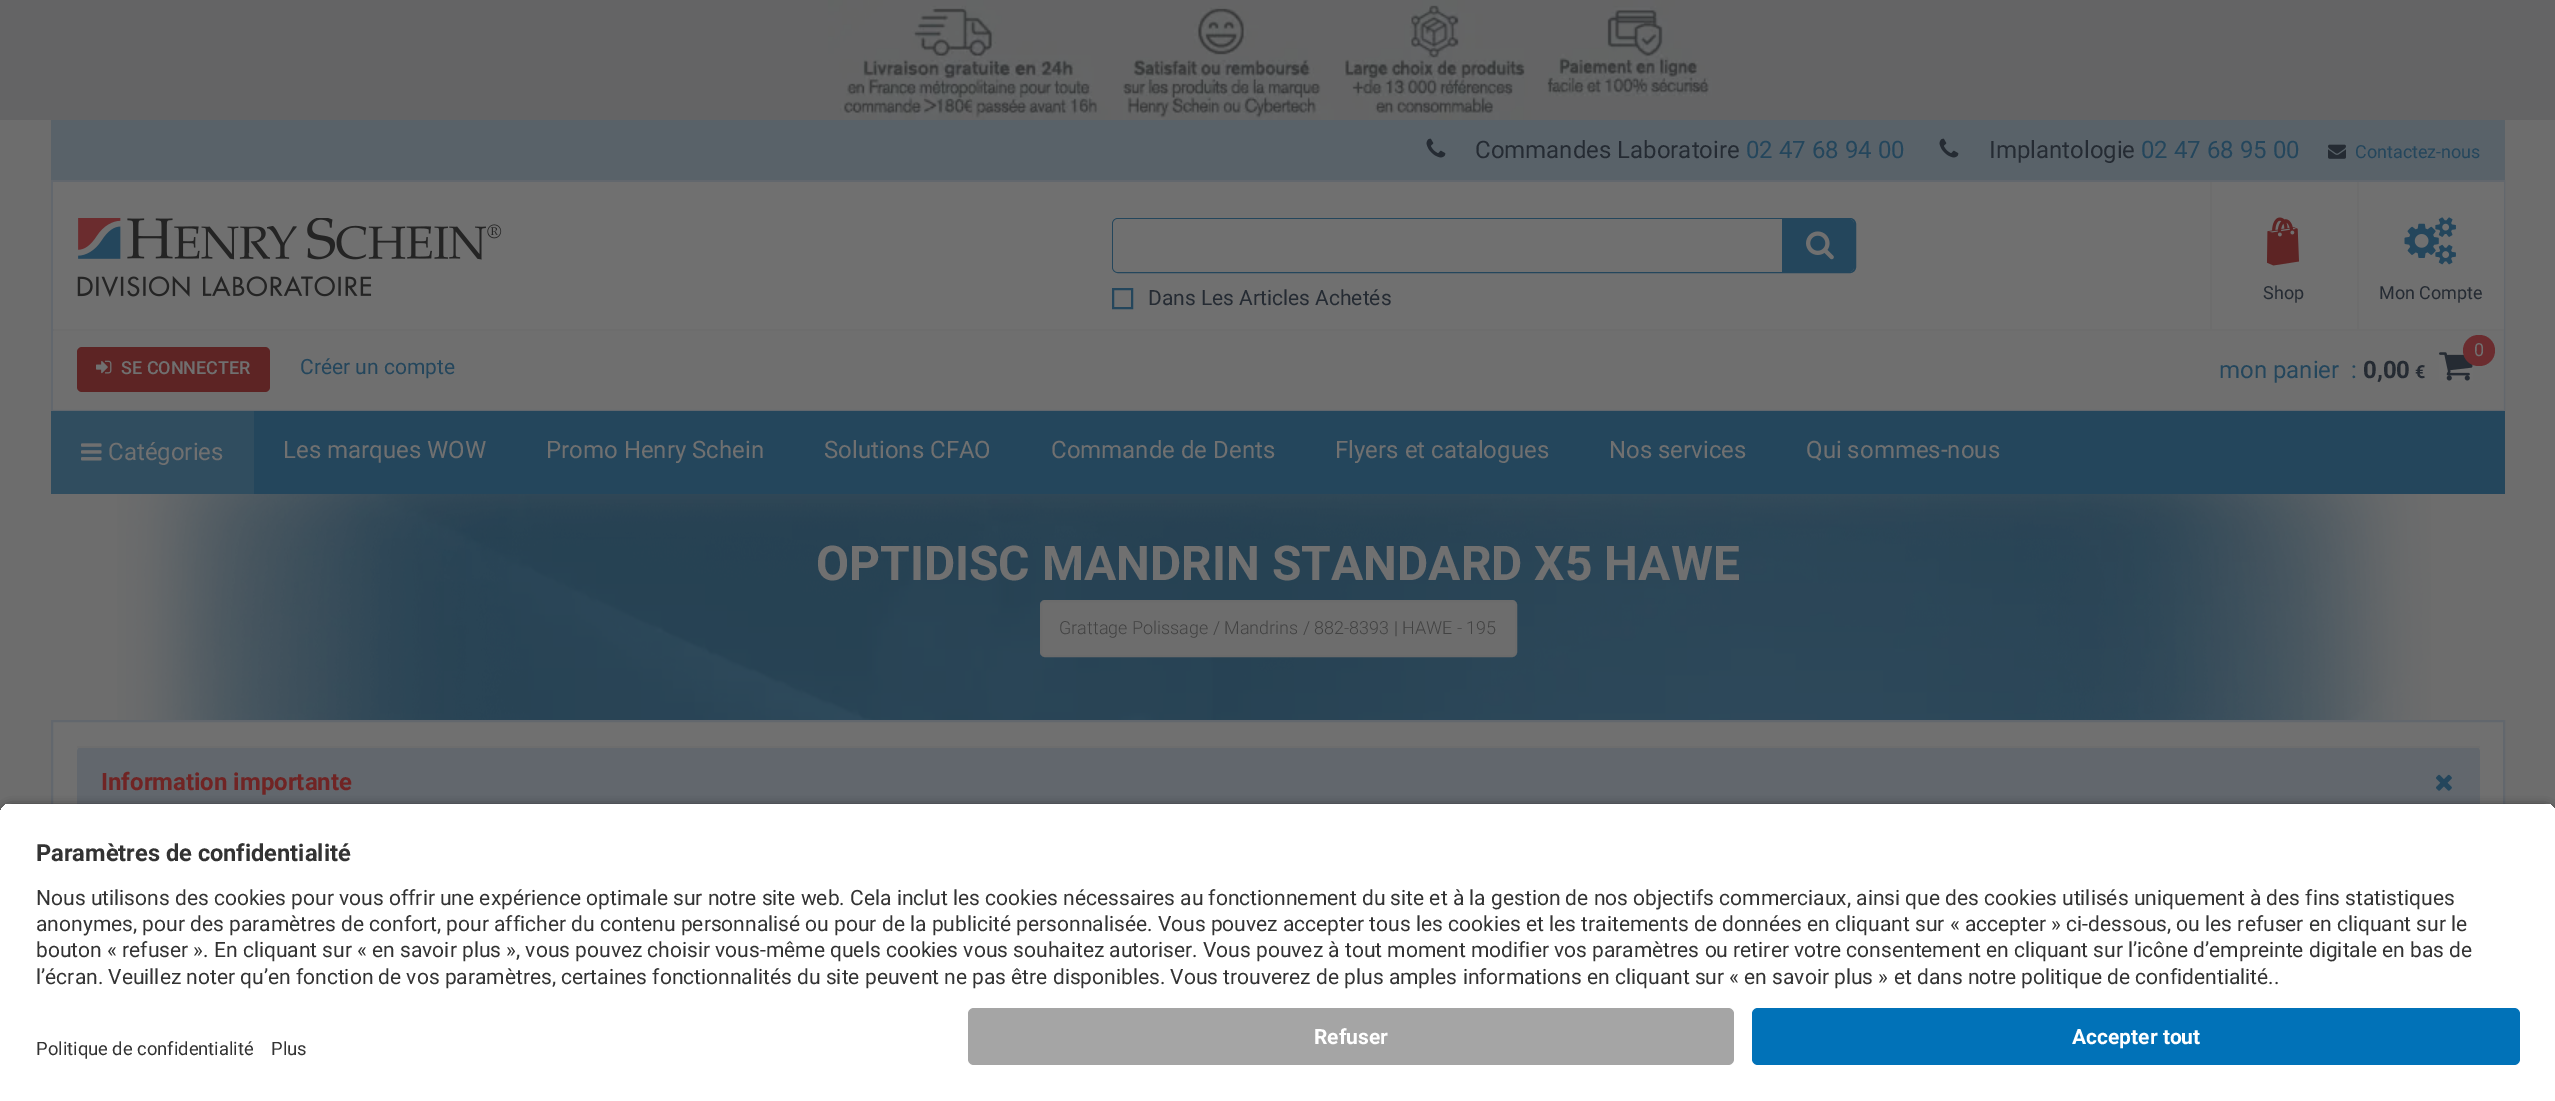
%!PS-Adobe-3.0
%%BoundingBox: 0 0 2555 1101
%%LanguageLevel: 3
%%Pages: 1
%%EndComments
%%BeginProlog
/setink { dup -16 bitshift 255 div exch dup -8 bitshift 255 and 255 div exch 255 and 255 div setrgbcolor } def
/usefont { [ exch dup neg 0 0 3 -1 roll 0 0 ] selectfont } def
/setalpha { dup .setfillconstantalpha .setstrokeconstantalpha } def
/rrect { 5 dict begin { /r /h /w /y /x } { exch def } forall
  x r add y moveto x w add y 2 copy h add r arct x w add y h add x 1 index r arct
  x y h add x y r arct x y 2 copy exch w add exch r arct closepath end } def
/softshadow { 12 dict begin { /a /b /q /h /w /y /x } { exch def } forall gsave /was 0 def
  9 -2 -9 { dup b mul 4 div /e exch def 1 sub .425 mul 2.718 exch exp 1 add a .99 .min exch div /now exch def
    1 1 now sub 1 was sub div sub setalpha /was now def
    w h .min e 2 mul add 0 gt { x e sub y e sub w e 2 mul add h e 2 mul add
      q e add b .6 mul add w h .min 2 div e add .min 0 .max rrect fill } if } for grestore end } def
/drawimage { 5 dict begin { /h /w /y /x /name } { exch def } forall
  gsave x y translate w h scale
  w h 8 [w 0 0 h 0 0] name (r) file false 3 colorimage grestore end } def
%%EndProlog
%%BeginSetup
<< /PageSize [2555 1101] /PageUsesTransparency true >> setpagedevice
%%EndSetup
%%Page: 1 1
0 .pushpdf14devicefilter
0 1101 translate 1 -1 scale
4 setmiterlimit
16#6D6D6D setink
0 0 2555 1101 rectfill
16#646465 setink
0 0 2555 120 rectfill
(img1.raw) 828 0 884 120 drawimage
16#596269 setink
51 120 2454 60 rectfill
(img2.raw) 1426 138 20 20 drawimage
/Roboto-Regular 24 usefont
16#252B33 setink
1475 158 moveto (Commandes Laboratoire) show
16#24465C setink
1746 158 moveto (02 47 68 94 00) show
(img2.raw) 1939 138 20 20 drawimage
16#252B33 setink
1989 158 moveto (Implantologie) show
16#24465C setink
2141 158 moveto (02 47 68 95 00) show
(img3.raw) 2328 144 18 15 drawimage
/Roboto-Regular 18 usefont
2355 158 moveto (Contactez-nous) show
(img11.raw) 117 408 2314 312 drawimage
16#62676D setink
2 setlinewidth
52 181 2452 229 rectstroke
16#707070 setink
53 182 2451 147 rectfill
(img4.raw) 77 218 425 79 drawimage
16#24465C setink
1113 219 742 53 5 rrect stroke
16#707070 setink
1113 219 741 53 5 rrect fill
16#24465C setink
1782 219 moveto 1849 219 lineto 1852 219 1854 221 1854 224 curveto 1854 267 lineto 1854 270 1852 272 1849 272 curveto 1782 272 lineto closepath fill
(img5.raw) 1806 231 28 29 drawimage
1113 289 19 19 rectstroke
/Roboto-Regular 21 usefont
16#252B33 setink
1148 305 moveto (Dans Les Articles Achetés) show
16#6D6D6D setink
2210 182 2 147 rectfill
(img6.raw) 2267 217 32 49 drawimage
/Roboto-Regular 18 usefont
16#252B33 setink
2263 299 moveto (Shop) show
16#6D6D6D setink
2357 182 2 147 rectfill
(img7.raw) 2404 217 52 48 drawimage
16#252B33 setink
2379 299 moveto (Mon Compte) show
0.8 setalpha
16#707070 setink
53 331 2451 79 rectfill
1 setalpha
16#6D6D6D setink
2503 329 1 2 rectfill
16#5D2424 setink
77 347 193 45 5 rrect fill
(img8.raw) 96 360 16 14 drawimage
/Roboto-Medium 18 usefont
16#707070 setink
121 374 moveto (SE CONNECTER) show
/Roboto-Regular 21 usefont
16#24465C setink
300 374 moveto (Créer un compte) show
(img9.raw) 2439 352 34 29 drawimage
16#6B2C2F setink
2463 335 32 31 15.5 rrect fill
/Roboto-Regular 18 usefont
16#707070 setink
2474 356 moveto (0) show
/Roboto-Regular 24 usefont
16#24465C setink
2219 378 moveto (mon panier  :) show
/Roboto-Bold 24 usefont
16#252B33 setink
2363 378 moveto (0,00) show
/Roboto-Bold 18 usefont
2415 378 moveto (€) show
16#24465C setink
254 411 2251 83 rectfill
16#304D5F setink
51 411 203 83 rectfill
(img10.raw) 81 443 21 18 drawimage
/Roboto-Regular 24 usefont
16#707070 setink
[
    [(Catégories) 108 460]
    [(Les marques WOW) 283 458]
    [(Promo Henry Schein) 546 458]
    [(Solutions CFAO) 824 458]
    [(Commande de Dents) 1051 458]
    [(Flyers et catalogues) 1335 458]
    [(Nos services) 1609 458]
    [(Qui sommes-nous) 1806 458]
] { aload pop moveto show } forall
/Roboto-Bold 48 usefont
816 580 moveto (OPTIDISC MANDRIN STANDARD X5 HAWE) show
16#6D6D6D setink
1041 601 475 55 4 rrect gsave fill grestore
16#6B6B6B setink
stroke
/Roboto-Light 18 usefont
16#424242 setink
1059 634 moveto (Grattage Polissage / Mandrins / 882-8393 | HAWE - 195) show
16#707070 setink
53 722 2450 82 rectfill
16#62676D setink
52 721 2452 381 rectstroke
77 746 2403 273 6 rrect fill
16#6D6D6D setink
77 746 2403 2 rectfill
/Roboto-Bold 24 usefont
16#702424 setink
101 790 moveto (Information importante) show
(img12.raw) 2436 774 16 17 drawimage
16#000000 setink
0 807 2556 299 12 5 0.8 softshadow
gsave
12 803 moveto 2544 803 lineto 2550.5 803 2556 808.5 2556 815 curveto 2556 996 lineto 0 996 lineto 0 815 lineto 0 808.5 5.5 803 12 803 curveto closepath clip newpath
16#FFFFFF setink
0 804 2555 192 rectfill
grestore
/Roboto-Bold 23.6 usefont
16#333333 setink
36 861 moveto (Paramètres de confidentialité) show
/Roboto-Regular 21 usefont
[
    [(Nous utilisons des cookies pour vous offrir une expérience optimale sur notre site web. Cela inclut les cookies nécessaires au fonctionnement du site et à la gestion de nos objectifs commerciaux, ainsi que des cookies utilisés uniquement à des fins statistiques) 36 905]
    [(anonymes, pour des paramètres de confort, pour afficher du contenu personnalisé ou pour de la publicité personnalisée. Vous pouvez accepter tous les cookies et les traitements de données en cliquant sur « accepter » ci-dessous, ou les refuser en cliquant sur le) 36 931]
    [(bouton « refuser ». En cliquant sur « en savoir plus », vous pouvez choisir vous-même quels cookies vous souhaitez autoriser. Vous pouvez à tout moment modifier vos paramètres ou retirer votre consentement en cliquant sur l’icône d’empreinte digitale en bas de) 36 957]
    [(l’écran. Veuillez noter qu’en fonction de vos paramètres, certaines fonctionnalités du site peuvent ne pas être disponibles. Vous trouverez de plus amples informations en cliquant sur « en savoir plus » et dans notre politique de confidentialité..) 36 984]
] { aload pop moveto show } forall
16#FFFFFF setink
0 996 2555 105 rectfill
/Roboto-Regular 18.4 usefont
16#333333 setink
36 1055 moveto (Politique de confidentialité) show
271 1055 moveto (Plus) show
16#A5A5A5 setink
968 1008 766 57 6 rrect fill
/Roboto-Bold 21 usefont
16#FFFFFF setink
1314 1044 moveto (Refuser) show
16#0172B8 setink
1752 1008 768 57 6 rrect fill
16#FFFFFF setink
2072 1044 moveto (Accepter tout) show
.poppdf14devicefilter showpage
%%EOF
